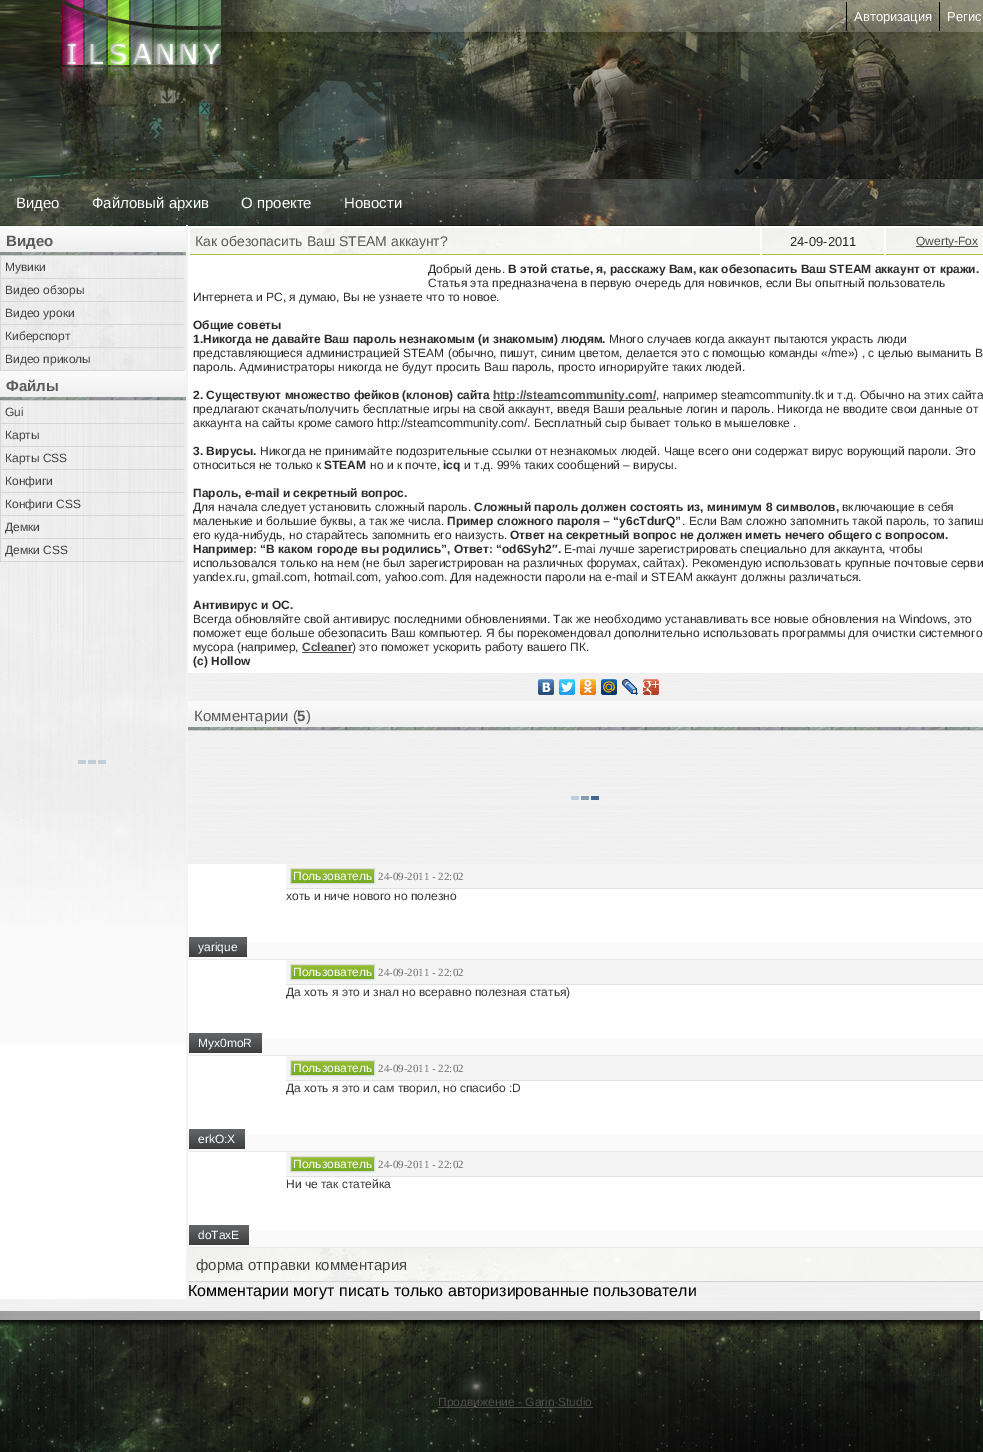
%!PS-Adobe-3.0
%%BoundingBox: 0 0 983 1452
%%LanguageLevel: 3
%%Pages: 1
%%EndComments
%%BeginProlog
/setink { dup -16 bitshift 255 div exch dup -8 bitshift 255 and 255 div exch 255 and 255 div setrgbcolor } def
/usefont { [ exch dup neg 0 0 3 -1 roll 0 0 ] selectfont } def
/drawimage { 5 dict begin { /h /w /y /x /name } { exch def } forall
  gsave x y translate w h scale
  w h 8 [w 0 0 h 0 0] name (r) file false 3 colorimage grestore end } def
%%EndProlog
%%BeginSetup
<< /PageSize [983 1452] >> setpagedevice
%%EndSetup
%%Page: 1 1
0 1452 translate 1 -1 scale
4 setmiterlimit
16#FFFFFF setink
0 0 983 1452 rectfill
(img1.raw) 980 1311 3 9 drawimage
(img2.raw) 0 0 60 179 drawimage
(img3.raw) 60 0 161 83 drawimage
(img4.raw) 221 0 762 32 drawimage
16#000000 setink
846 2 1 29 rectfill
/LiberationSans-Regular 13 usefont
16#FFFFFF setink
854 21 moveto (Авторизация) show
16#000000 setink
939 2 1 29 rectfill
16#FFFFFF setink
947 21 moveto (Регис) show
(img5.raw) 60 83 161 96 drawimage
(img6.raw) 221 32 762 147 drawimage
(img7.raw) 0 179 983 47 drawimage
/LiberationSans-Regular 15 usefont
[
    [(Видео) 16 208]
    [(Файловый архив) 92 208]
    [(О проекте) 241 208]
    [(Новости) 344 208]
] { aload pop moveto show } forall
(img8.raw) 0 673 983 638 drawimage
0 1044 186 255 rectfill
(img9.raw) 0 256 186 788 drawimage
16#F3F3F3 setink
186 225 2 1076 rectfill
(img10.raw) 0 226 186 29 drawimage
16#D1D1D1 setink
0 255 186 1 rectfill
/LiberationSans-Bold 15 usefont
16#5A5A5A setink
6 246 moveto (Видео) show
16#D6D6D6 setink
0 278 184 1 rectfill
0 256 1 23 rectfill
/LiberationSans-Regular 12 usefont
16#434343 setink
5 271 moveto (Мувики) show
16#D6D6D6 setink
0 301 184 1 rectfill
0 279 1 23 rectfill
16#434343 setink
5 294 moveto (Видео обзоры) show
16#D6D6D6 setink
0 324 184 1 rectfill
0 302 1 23 rectfill
16#434343 setink
5 317 moveto (Видео уроки) show
16#D6D6D6 setink
0 347 184 1 rectfill
0 325 1 23 rectfill
16#434343 setink
5 340 moveto (Киберспорт) show
16#D6D6D6 setink
0 370 184 1 rectfill
0 348 1 23 rectfill
16#434343 setink
5 363 moveto (Видео приколы) show
(img10.raw) 0 371 186 29 drawimage
16#D1D1D1 setink
0 400 186 1 rectfill
/LiberationSans-Bold 15 usefont
16#5A5A5A setink
6 391 moveto (Файлы) show
16#D6D6D6 setink
0 423 184 1 rectfill
0 401 1 23 rectfill
/LiberationSans-Regular 12 usefont
16#434343 setink
5 416 moveto (Gui) show
16#D6D6D6 setink
0 446 184 1 rectfill
0 424 1 23 rectfill
16#434343 setink
5 439 moveto (Карты) show
16#D6D6D6 setink
0 469 184 1 rectfill
0 447 1 23 rectfill
16#434343 setink
5 462 moveto (Карты CSS) show
16#D6D6D6 setink
0 492 184 1 rectfill
0 470 1 23 rectfill
16#434343 setink
5 485 moveto (Конфиги) show
16#D6D6D6 setink
0 515 184 1 rectfill
0 493 1 23 rectfill
16#434343 setink
5 508 moveto (Конфиги CSS) show
16#D6D6D6 setink
0 538 184 1 rectfill
0 516 1 23 rectfill
16#434343 setink
5 531 moveto (Демки) show
16#D6D6D6 setink
0 561 184 1 rectfill
0 539 1 23 rectfill
16#434343 setink
5 554 moveto (Демки CSS) show
(img11.raw) 78 760 28 4 drawimage
(img12.raw) 190 228 570 26 drawimage
16#A8BF4C setink
190 254 570 1 rectfill
/LiberationSans-Regular 14 usefont
16#5A5A5A setink
195 246 moveto (Как обезопасить Ваш STEAM аккаунт?) show
(img13.raw) 762 228 122 26 drawimage
16#A8BF4C setink
762 254 122 1 rectfill
/LiberationSans-Regular 13 usefont
16#2C2C2C setink
790 246 moveto (24-09-2011) show
(img14.raw) 886 228 97 26 drawimage
16#A8BF4C setink
886 254 97 1 rectfill
16#4D4D4D setink
916 246 62 1 rectfill
/LiberationSans-Regular 12 usefont
916 245 moveto (Qwerty-Fox) show
16#2C2C2C setink
428 273 moveto (Добрый день.) show
/LiberationSans-Bold 12 usefont
508 273 moveto (В этой статье, я, расскажу Вам, как обезопасить Ваш STEAM аккаунт от кражи.) show
/LiberationSans-Regular 12 usefont
428 287 moveto (Статья эта предназначена в первую очередь для новичков, если Вы опытный пользователь) show
193 301 moveto (Интернета и PC, я думаю, Вы не узнаете что то новое.) show
/LiberationSans-Bold 12 usefont
193 329 moveto (Общие советы) show
193 343 moveto (1.Никогда не давайте Ваш пароль незнакомым \(и знакомым\) людям.) show
/LiberationSans-Regular 12 usefont
[
    [(Много случаев когда аккаунт пытаются украсть люди) 609 343]
    [(представляющиеся администрацией STEAM \(обычно, пишут, синим цветом, делается это с помощью команды «/me»\) , с целью выманить В) 193 357]
    [(пароль. Администраторы никогда не будут просить Ваш пароль, просто игнорируйте таких людей.) 193 371]
] { aload pop moveto show } forall
/LiberationSans-Bold 12 usefont
193 399 moveto (2. Существуют множество фейков \(клонов\) сайта) show
16#4D4D4D setink
493 400 163 1 rectfill
493 399 moveto (http://steamcommunity.com/) show
/LiberationSans-Regular 12 usefont
16#2C2C2C setink
[
    [(, например steamcommunity.tk и т.д. Обычно на этих сайта) 656 399]
    [(предлагают скачать/получить бесплатные игры на свой аккаунт, введя Ваши реальные логин и пароль. Никогда не вводите свои данные от) 193 413]
    [(аккаунта на сайты кроме самого http://steamcommunity.com/. Бесплатный сыр бывает только в мышеловке .) 193 427]
] { aload pop moveto show } forall
/LiberationSans-Bold 12 usefont
193 455 moveto (3. Вирусы.) show
/LiberationSans-Regular 12 usefont
260 455 moveto (Никогда не принимайте подозрительные ссылки от незнакомых людей. Чаще всего они содержат вирус ворующий пароли. Это) show
193 469 moveto (относиться не только к) show
/LiberationSans-Bold 12 usefont
324 469 moveto (STEAM) show
/LiberationSans-Regular 12 usefont
370 469 moveto (но и к почте,) show
/LiberationSans-Bold 12 usefont
443 469 moveto (icq) show
/LiberationSans-Regular 12 usefont
464 469 moveto (и т.д. 99% таких сообщений – вирусы.) show
/LiberationSans-Bold 12 usefont
193 497 moveto (Пароль, e-mail и секретный вопрос.) show
/LiberationSans-Regular 12 usefont
193 511 moveto (Для начала следует установить сложный пароль.) show
/LiberationSans-Bold 12 usefont
474 511 moveto (Сложный пароль должен состоять из, минимум 8 символов,) show
/LiberationSans-Regular 12 usefont
842 511 moveto (включающие в себя) show
193 525 moveto (маленькие и большие буквы, а так же числа.) show
/LiberationSans-Bold 12 usefont
447 525 moveto (Пример сложного пароля – “y6cTdurQ”) show
/LiberationSans-Regular 12 usefont
682 525 moveto (. Если Вам сложно запомнить такой пароль, то запиш) show
193 539 moveto (его куда-нибудь, но старайтесь запомнить его наизусть.) show
/LiberationSans-Bold 12 usefont
510 539 moveto (Ответ на секретный вопрос не должен иметь нечего общего с вопросом.) show
193 553 moveto (Например: “В каком городе вы родились”, Ответ: “od6Syh2″.) show
/LiberationSans-Regular 12 usefont
[
    [(E-mai лучше зарегистрировать специально для аккаунта, чтобы) 564 553]
    [(использовался только на нем \(не был зарегистрирован на различных форумах, сайтах\). Рекомендую использовать крупные почтовые серви) 193 567]
    [(yandex.ru, gmail.com, hotmail.com, yahoo.com. Для надежности пароли на e-mail и STEAM аккаунт должны различаться.) 193 581]
] { aload pop moveto show } forall
/LiberationSans-Bold 12 usefont
193 609 moveto (Антивирус и ОС.) show
/LiberationSans-Regular 12 usefont
[
    [(Всегда обновляйте свой антивирус последними обновлениями. Так же необходимо устанавливать все новые обновления на Windows, это) 193 623]
    [(поможет еще больше обезопасить Ваш компьютер. Я бы порекомендовал дополнительно использовать программы для очистки системного) 193 637]
    [(мусора \(например,) 193 651]
] { aload pop moveto show } forall
/LiberationSans-Bold 12 usefont
16#4D4D4D setink
302 651 moveto (Ccleaner) show
/LiberationSans-Regular 12 usefont
16#2C2C2C setink
352 651 moveto (\) это поможет ускорить работу вашего ПК.) show
16#4D4D4D setink
302 652 50 1 rectfill
/LiberationSans-Bold 12 usefont
16#2C2C2C setink
193 665 moveto (\(c\) Hollow) show
(img15.raw) 538 679 16 16 drawimage
(img16.raw) 559 679 16 16 drawimage
(img17.raw) 580 679 16 16 drawimage
(img18.raw) 601 679 16 16 drawimage
(img19.raw) 622 679 16 16 drawimage
(img20.raw) 643 679 16 16 drawimage
(img21.raw) 188 701 795 29 drawimage
16#D1D1D1 setink
188 730 795 1 rectfill
/LiberationSans-Regular 15 usefont
16#5A5A5A setink
194 721 moveto (Комментарии \() show
/LiberationSans-Bold 15 usefont
297 721 moveto (5) show
/LiberationSans-Regular 15 usefont
306 721 moveto (\)) show
(img22.raw) 571 796 28 4 drawimage
[
    [188 864 795 78 16#FFFFFF]
    [188 942 795 17 16#FAFAFA]
    [188 959 795 1 16#EAEAEA]
    [286 864 697 24 16#F4F4F4]
    [286 888 697 1 16#E1E1E1]
] { aload pop setink rectfill } forall
(img23.raw) 291 869 83 14 drawimage
16#DBDBDB setink
290.5 868.5 84 15 rectstroke
/LiberationSans-Regular 12 usefont
16#FFFFFF setink
293 880 moveto (Пользователь) show
/LiberationSerif-Regular 11 usefont
16#6C6C6C setink
378 880 moveto (24-09-2011 - 22:02) show
/LiberationSans-Regular 12 usefont
16#393939 setink
286 900 moveto (хоть и ниче нового но полезно) show
(img24.raw) 189 937 58 20 drawimage
16#FFFFFF setink
198 951 moveto (yarique) show
[
    [188 960 795 78 16#FFFFFF]
    [188 1038 795 17 16#FAFAFA]
    [188 1055 795 1 16#EAEAEA]
    [286 960 697 24 16#F4F4F4]
    [286 984 697 1 16#E1E1E1]
] { aload pop setink rectfill } forall
(img23.raw) 291 965 83 14 drawimage
16#DBDBDB setink
290.5 964.5 84 15 rectstroke
16#FFFFFF setink
293 976 moveto (Пользователь) show
/LiberationSerif-Regular 11 usefont
16#6C6C6C setink
378 976 moveto (24-09-2011 - 22:02) show
/LiberationSans-Regular 12 usefont
16#393939 setink
286 996 moveto (Да хоть я это и знал но всеравно полезная статья\)) show
(img25.raw) 189 1033 73 20 drawimage
16#FFFFFF setink
198 1047 moveto (Myx0moR) show
[
    [188 1056 795 78 16#FFFFFF]
    [188 1134 795 17 16#FAFAFA]
    [188 1151 795 1 16#EAEAEA]
    [286 1056 697 24 16#F4F4F4]
    [286 1080 697 1 16#E1E1E1]
] { aload pop setink rectfill } forall
(img23.raw) 291 1061 83 14 drawimage
16#DBDBDB setink
290.5 1060.5 84 15 rectstroke
16#FFFFFF setink
293 1072 moveto (Пользователь) show
/LiberationSerif-Regular 11 usefont
16#6C6C6C setink
378 1072 moveto (24-09-2011 - 22:02) show
/LiberationSans-Regular 12 usefont
16#393939 setink
286 1092 moveto (Да хоть я это и сам творил, но спасибо :D) show
(img26.raw) 189 1129 56 20 drawimage
16#FFFFFF setink
198 1143 moveto (erkO:X) show
[
    [188 1152 795 78 16#FFFFFF]
    [188 1230 795 17 16#FAFAFA]
    [188 1247 795 1 16#EAEAEA]
    [286 1152 697 24 16#F4F4F4]
    [286 1176 697 1 16#E1E1E1]
] { aload pop setink rectfill } forall
(img23.raw) 291 1157 83 14 drawimage
16#DBDBDB setink
290.5 1156.5 84 15 rectstroke
16#FFFFFF setink
293 1168 moveto (Пользователь) show
/LiberationSerif-Regular 11 usefont
16#6C6C6C setink
378 1168 moveto (24-09-2011 - 22:02) show
/LiberationSans-Regular 12 usefont
16#393939 setink
286 1188 moveto (Ни че так статейка) show
(img27.raw) 189 1225 60 20 drawimage
16#FFFFFF setink
198 1239 moveto (doTaxE) show
(img28.raw) 188 1248 795 33 drawimage
16#D1D1D1 setink
188 1281 795 1 rectfill
/LiberationSans-Regular 15 usefont
16#434343 setink
196 1270 moveto (форма отправки комментария) show
/LiberationSans-Regular 16 usefont
16#000000 setink
188 1296 moveto (Комментарии могут писать только авторизированные пользователи) show
(img29.raw) 0 1311 980 9 drawimage
(img30.raw) 0 1320 983 132 drawimage
16#4D4D4D setink
438 1407 155 1 rectfill
/LiberationSans-Regular 12 usefont
438 1406 moveto (Продвижение - Garin Studio) show
showpage
%%EOF
